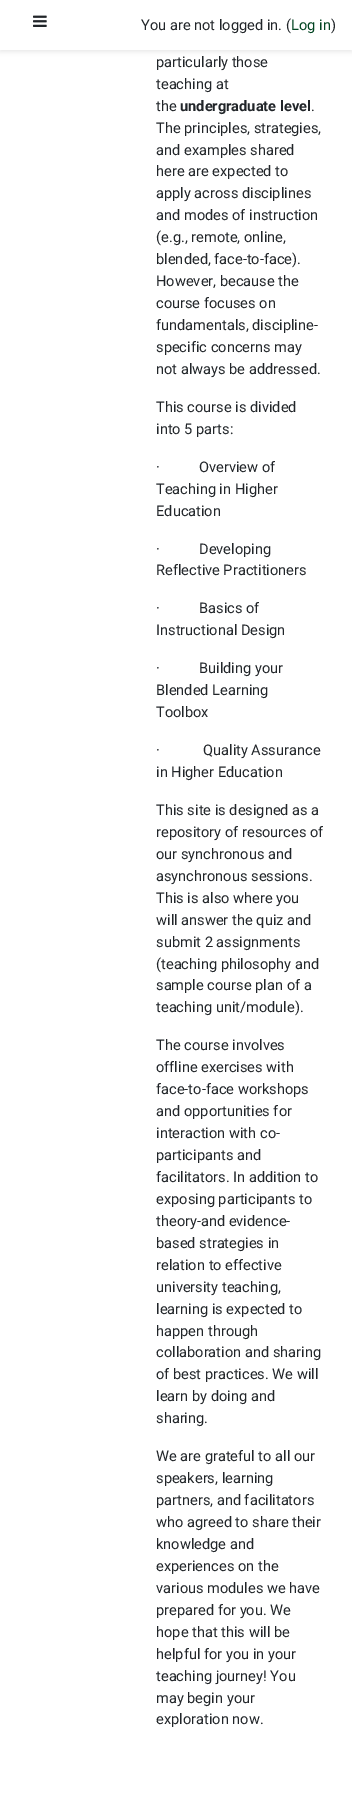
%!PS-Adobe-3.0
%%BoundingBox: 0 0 352 1818
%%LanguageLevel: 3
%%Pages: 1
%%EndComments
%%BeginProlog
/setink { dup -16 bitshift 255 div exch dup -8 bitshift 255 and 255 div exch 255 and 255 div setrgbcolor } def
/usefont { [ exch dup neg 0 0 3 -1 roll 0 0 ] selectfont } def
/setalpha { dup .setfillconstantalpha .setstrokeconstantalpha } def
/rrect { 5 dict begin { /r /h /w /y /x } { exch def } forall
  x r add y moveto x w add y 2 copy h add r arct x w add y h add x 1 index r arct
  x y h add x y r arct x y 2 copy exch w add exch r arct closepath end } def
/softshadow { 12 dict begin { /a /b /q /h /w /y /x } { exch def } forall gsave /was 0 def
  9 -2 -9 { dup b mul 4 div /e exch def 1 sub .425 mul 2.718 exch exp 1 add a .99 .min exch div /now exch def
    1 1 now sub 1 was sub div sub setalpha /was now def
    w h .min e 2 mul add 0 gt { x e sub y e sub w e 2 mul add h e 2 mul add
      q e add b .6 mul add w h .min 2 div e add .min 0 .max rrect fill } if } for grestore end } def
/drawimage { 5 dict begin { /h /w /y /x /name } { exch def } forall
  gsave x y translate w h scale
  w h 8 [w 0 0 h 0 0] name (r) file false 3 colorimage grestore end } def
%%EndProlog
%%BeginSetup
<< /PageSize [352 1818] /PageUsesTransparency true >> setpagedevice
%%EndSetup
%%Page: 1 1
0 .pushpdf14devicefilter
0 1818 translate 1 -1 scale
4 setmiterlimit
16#FFFFFF setink
0 0 352 1818 rectfill
16#000000 setink
0 2 352 50 0 2 0.08 softshadow
16#FFFFFF setink
0 0 352 50 rectfill
(img1.raw) 33 15 14 12 drawimage
/Roboto-Regular 14.6 usefont
16#212529 setink
141 30 moveto (You are not logged in. \() show
16#014421 setink
291 30 moveto (Log in) show
16#212529 setink
[
    [(\)) 331 30]
    [(particularly those) 156 67]
    [(teaching at) 156 89]
    [(the) 156 111]
] { aload pop moveto show } forall
/Roboto-Bold 14.6 usefont
180 111 moveto (undergraduate level) show
/Roboto-Regular 14.6 usefont
[
    [(.) 311 111]
    [(The principles, strategies,) 156 133]
    [(and examples shared) 156 155]
    [(here are expected to) 156 176]
    [(apply across disciplines) 156 198]
    [(and modes of instruction) 156 220]
    [(\(e.g., remote, online,) 156 242]
    [(blended, face-to-face\).) 156 264]
    [(However, because the) 156 286]
    [(course focuses on) 156 308]
    [(fundamentals, discipline-) 156 330]
    [(specific concerns may) 156 352]
    [(not always be addressed.) 156 374]
    [(This course is divided) 156 412]
    [(into 5 parts:) 156 434]
    [(·) 156 472]
    [(Overview of) 199 472]
    [(Teaching in Higher) 156 494]
    [(Education) 156 516]
    [(·) 156 554]
    [(Developing) 199 554]
    [(Reflective Practitioners) 156 575]
    [(·) 156 613]
    [(Basics of) 199 613]
    [(Instructional Design) 156 635]
    [(·) 156 673]
    [(Building your) 199 673]
    [(Blended Learning) 156 695]
    [(Toolbox) 156 717]
    [(·) 156 755]
    [(Quality Assurance) 203 755]
    [(in Higher Education) 156 777]
    [(This site is designed as a) 156 815]
    [(repository of resources of) 156 837]
    [(our synchronous and) 156 859]
    [(asynchronous sessions.) 156 881]
    [(This is also where you) 156 903]
    [(will answer the quiz and) 156 925]
    [(submit 2 assignments) 156 947]
    [(\(teaching philosophy and) 156 969]
    [(sample course plan of a) 156 990]
    [(teaching unit/module\).) 156 1012]
    [(The course involves) 156 1050]
    [(offline exercises with) 156 1072]
    [(face-to-face workshops) 156 1094]
    [(and opportunities for) 156 1116]
    [(interaction with co-) 156 1138]
    [(participants and) 156 1160]
    [(facilitators. In addition to) 156 1182]
    [(exposing participants to) 156 1204]
    [(theory-and evidence-) 156 1226]
    [(based strategies in) 156 1248]
    [(relation to effective) 156 1270]
    [(university teaching,) 156 1292]
    [(learning is expected to) 156 1314]
    [(happen through) 156 1336]
    [(collaboration and sharing) 156 1357]
    [(of best practices. We will) 156 1379]
    [(learn by doing and) 156 1401]
    [(sharing.) 156 1423]
    [(We are grateful to all our) 156 1461]
    [(speakers, learning) 156 1483]
    [(partners, and facilitators) 156 1505]
    [(who agreed to share their) 156 1527]
    [(knowledge and) 156 1549]
    [(experiences on the) 156 1571]
    [(various modules we have) 156 1593]
    [(prepared for you. We) 156 1615]
    [(hope that this will be) 156 1637]
    [(helpful for you in your) 156 1659]
    [(teaching journey! You) 156 1681]
    [(may begin your) 156 1703]
    [(exploration now.) 156 1724]
] { aload pop moveto show } forall
.poppdf14devicefilter showpage
%%EOF
